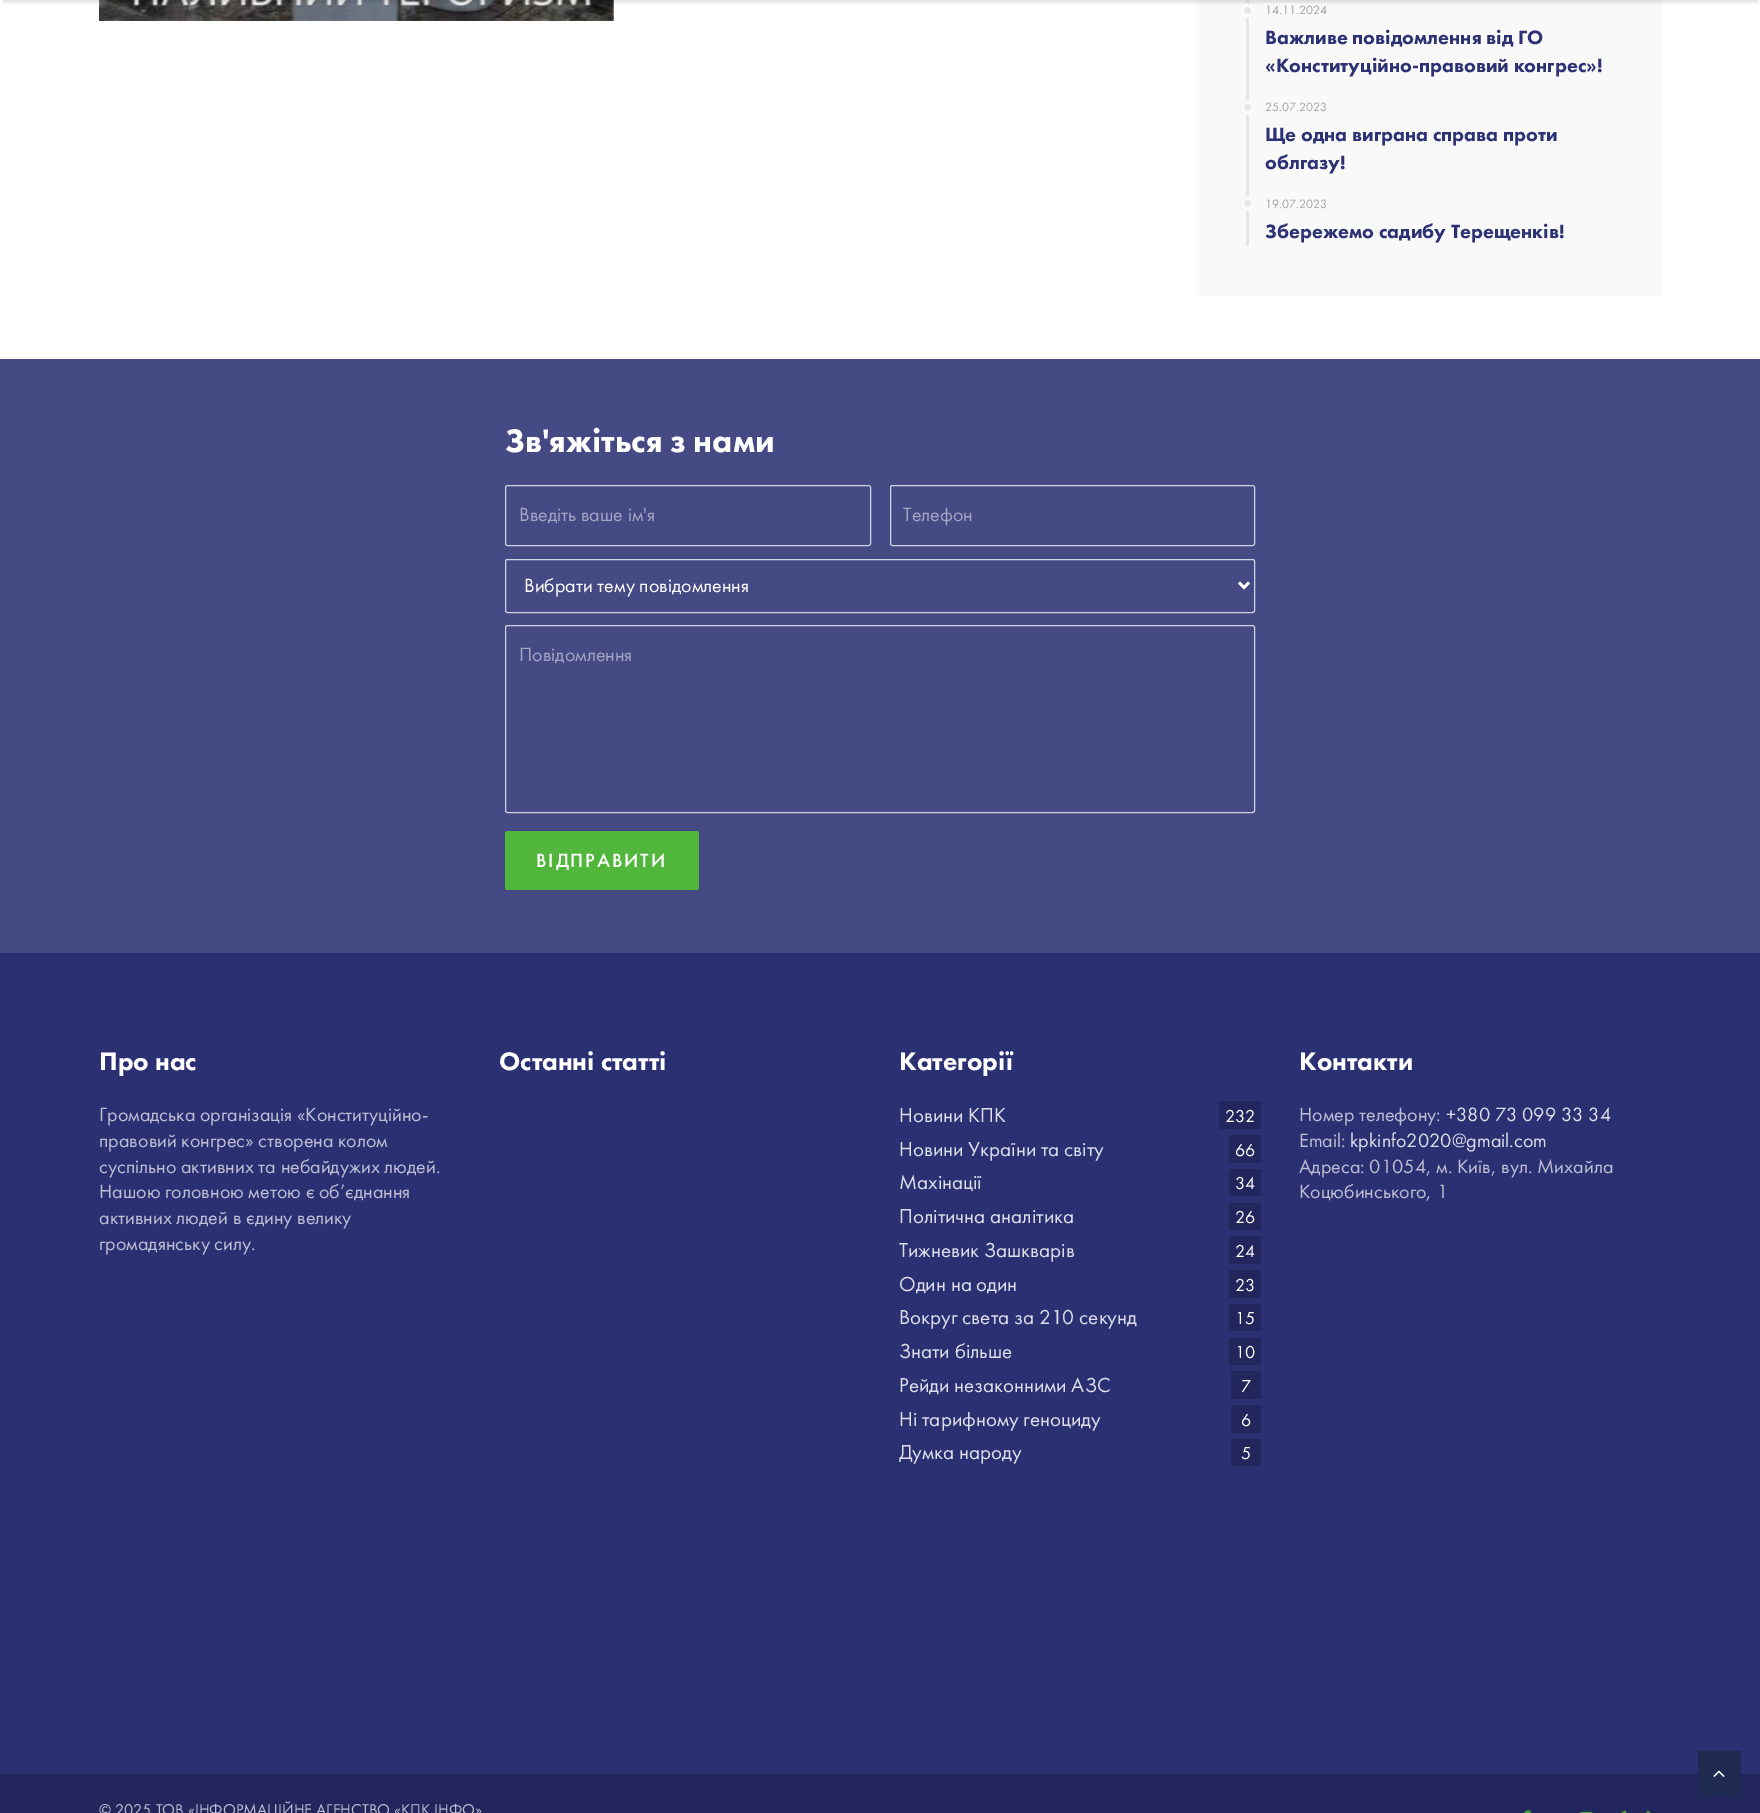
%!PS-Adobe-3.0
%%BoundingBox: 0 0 1760 1813
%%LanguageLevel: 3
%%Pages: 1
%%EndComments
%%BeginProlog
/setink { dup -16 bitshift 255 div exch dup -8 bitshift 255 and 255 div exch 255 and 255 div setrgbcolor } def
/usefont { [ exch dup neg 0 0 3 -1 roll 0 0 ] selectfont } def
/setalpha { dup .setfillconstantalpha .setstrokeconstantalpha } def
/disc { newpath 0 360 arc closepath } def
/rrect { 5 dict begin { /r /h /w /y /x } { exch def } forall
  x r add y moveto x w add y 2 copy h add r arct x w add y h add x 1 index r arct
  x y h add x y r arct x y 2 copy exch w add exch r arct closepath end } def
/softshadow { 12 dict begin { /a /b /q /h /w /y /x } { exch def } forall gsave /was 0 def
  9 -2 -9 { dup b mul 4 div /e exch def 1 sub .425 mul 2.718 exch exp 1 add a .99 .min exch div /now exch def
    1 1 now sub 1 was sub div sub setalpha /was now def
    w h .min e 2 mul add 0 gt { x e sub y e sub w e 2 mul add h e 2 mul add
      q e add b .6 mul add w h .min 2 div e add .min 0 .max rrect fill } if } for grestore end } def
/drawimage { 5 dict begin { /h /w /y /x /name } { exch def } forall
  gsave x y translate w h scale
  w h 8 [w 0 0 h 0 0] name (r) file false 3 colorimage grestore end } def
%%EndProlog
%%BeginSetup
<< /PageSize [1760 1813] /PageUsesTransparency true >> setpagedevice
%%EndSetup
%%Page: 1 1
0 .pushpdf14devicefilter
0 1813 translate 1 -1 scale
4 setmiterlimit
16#FFFFFF setink
0 0 1760 1813 rectfill
(img1.raw) 99 0 515 21 drawimage
16#F9F9F9 setink
1196 0 465 296 rectfill
16#E6E6E6 setink
1246 0 3 246 rectfill
1247.5 10.5 7.5 disc fill
0.8 setalpha
16#FFFFFF setink
4 setlinewidth
1247.5 10.5 5.5 disc stroke
1 setalpha
16#000000 setink
3 -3 1755 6 0 1 0.1 softshadow
/FuturaPT-Regular 12.5 usefont
16#A2A2A2 setink
1265 14 moveto (14.11.2024) show
/FuturaPT-Black 20 usefont
16#2D3274 setink
1265 44 moveto (Важливе повідомлення від ГО) show
1265 72 moveto («Конституційно-правовий конгрес»!) show
16#E6E6E6 setink
1247.5 107.5 7.5 disc fill
0.8 setalpha
16#FFFFFF setink
1247.5 107.5 5.5 disc stroke
/FuturaPT-Regular 12.5 usefont
1 setalpha
16#A2A2A2 setink
1265 111 moveto (25.07.2023) show
/FuturaPT-Black 20 usefont
16#2D3274 setink
1265 141 moveto (Ще одна виграна справа проти) show
1265 169 moveto (облгазу!) show
16#E6E6E6 setink
1247.5 203.5 7.5 disc fill
0.8 setalpha
16#FFFFFF setink
1247.5 203.5 5.5 disc stroke
/FuturaPT-Regular 12.5 usefont
1 setalpha
16#A2A2A2 setink
1265 208 moveto (19.07.2023) show
/FuturaPT-Black 20 usefont
16#2D3274 setink
1265 238 moveto (Збережемо садибу Терещенків!) show
16#454984 setink
0 359 1760 594 rectfill
/FuturaPT-Black 33.75 usefont
16#FFFFFF setink
505 452 moveto (Зв'яжіться з нами) show
16#D1D2E0 setink
1 setlinewidth
505.5 485.5 365 60 2 rrect stroke
/FuturaPT-Regular 20 usefont
16#A2A4C2 setink
519 521 moveto (Введіть ваше ім'я) show
16#D1D2E0 setink
890.5 485.5 364 60 2 rrect stroke
16#A2A4C2 setink
903 521 moveto (Телефон) show
16#D1D2E0 setink
505.5 559.5 749 53 2 rrect stroke
16#FFFFFF setink
2.5 setlinewidth
1239 582.5 moveto 1244 587.5 lineto 1249 582.5 lineto stroke
524 592 moveto (Вибрати тему повідомлення) show
16#D1D2E0 setink
1 setlinewidth
505.5 625.5 749 187 2 rrect stroke
16#A2A4C2 setink
519 661 moveto (Повідомлення) show
16#50B63C setink
505 831 194 59 2.5 rrect fill
/FuturaPT-Medium 20 usefont
16#FFFFFF setink
536 867 moveto 1.9 0 (ВІДПРАВИТИ) ashow
16#2B3073 setink
0 953 1760 821 rectfill
/FuturaPT-Black 26.25 usefont
16#FFFFFF setink
99 1070 moveto (Про нас) show
/FuturaPT-Regular 20 usefont
16#BDBDD3 setink
[
    [(Громадська організація «Конституційно-) 99 1121]
    [(правовий конгрес» створена колом) 99 1147]
    [(суспільно активних та небайдужих людей.) 99 1173]
    [(Нашою головною метою є об’єднання) 99 1198]
    [(активних людей в єдину велику) 99 1224]
    [(громадянську силу.) 99 1250]
] { aload pop moveto show } forall
/FuturaPT-Black 26.25 usefont
16#FFFFFF setink
499 1070 moveto (Останні статті) show
899 1070 moveto (Категорії) show
/FuturaPT-Regular 21 usefont
16#DDDEE9 setink
899 1122 moveto (Новини КПК) show
16#22265C setink
1219 1101 42 28 2.5 rrect fill
/FuturaPT-Regular 18 usefont
16#FFFFFF setink
1225 1122 moveto (232) show
/FuturaPT-Regular 21 usefont
16#DDDEE9 setink
899 1156 moveto (Новини України та світу) show
16#22265C setink
1229 1135 32 28 2.5 rrect fill
/FuturaPT-Regular 18 usefont
16#FFFFFF setink
1235 1156 moveto (66) show
/FuturaPT-Regular 21 usefont
16#DDDEE9 setink
899 1189 moveto (Махінації) show
16#22265C setink
1229 1169 32 27 2.5 rrect fill
/FuturaPT-Regular 18 usefont
16#FFFFFF setink
1235 1189 moveto (34) show
/FuturaPT-Regular 21 usefont
16#DDDEE9 setink
899 1223 moveto (Політична аналітика) show
16#22265C setink
1229 1203 32 27 2.5 rrect fill
/FuturaPT-Regular 18 usefont
16#FFFFFF setink
1235 1223 moveto (26) show
/FuturaPT-Regular 21 usefont
16#DDDEE9 setink
899 1257 moveto (Тижневик Зашкварів) show
16#22265C setink
1229 1236 32 28 2.5 rrect fill
/FuturaPT-Regular 18 usefont
16#FFFFFF setink
1235 1257 moveto (24) show
/FuturaPT-Regular 21 usefont
16#DDDEE9 setink
899 1291 moveto (Один на один) show
16#22265C setink
1229 1270 32 28 2.5 rrect fill
/FuturaPT-Regular 18 usefont
16#FFFFFF setink
1235 1291 moveto (23) show
/FuturaPT-Regular 21 usefont
16#DDDEE9 setink
899 1324 moveto (Вокруг света за 210 секунд) show
16#22265C setink
1229 1304 32 27 2.5 rrect fill
/FuturaPT-Regular 18 usefont
16#FFFFFF setink
1235 1324 moveto (15) show
/FuturaPT-Regular 21 usefont
16#DDDEE9 setink
899 1358 moveto (Знати більше) show
16#22265C setink
1229 1338 32 27 2.5 rrect fill
/FuturaPT-Regular 18 usefont
16#FFFFFF setink
1235 1358 moveto (10) show
/FuturaPT-Regular 21 usefont
16#DDDEE9 setink
899 1392 moveto (Рейди незаконними АЗС) show
16#22265C setink
1231 1371 30 28 2.5 rrect fill
/FuturaPT-Regular 18 usefont
16#FFFFFF setink
1241 1392 moveto (7) show
/FuturaPT-Regular 21 usefont
16#DDDEE9 setink
899 1426 moveto (Ні тарифному геноциду) show
16#22265C setink
1231 1405 30 28 2.5 rrect fill
/FuturaPT-Regular 18 usefont
16#FFFFFF setink
1241 1426 moveto (6) show
/FuturaPT-Regular 21 usefont
16#DDDEE9 setink
899 1459 moveto (Думка народу) show
16#22265C setink
1231 1439 30 27 2.5 rrect fill
/FuturaPT-Regular 18 usefont
16#FFFFFF setink
1241 1459 moveto (5) show
/FuturaPT-Black 26.25 usefont
1299 1070 moveto (Контакти) show
/FuturaPT-Regular 20 usefont
16#BDBDD3 setink
1299 1121 moveto (Номер телефону:) show
16#DDDEE9 setink
1446 1121 moveto (+380 73 099 33 34) show
16#BDBDD3 setink
1299 1147 moveto (Email:) show
16#DDDEE9 setink
1350 1147 moveto (kpkinfo2020@gmail.com) show
16#BDBDD3 setink
1299 1173 moveto (Адреса: 01054, м. Київ, вул. Михайла) show
1299 1198 moveto (Коцюбинського, 1) show
16#22265C setink
0 1774 1760 39 rectfill
/FuturaPT-Regular 16.25 usefont
16#BDBDD3 setink
99 1815 moveto (© 2025 ТОВ «ІНФОРМАЦІЙНЕ АГЕНСТВО «КПК ІНФО») show
(img2.raw) 1524 1810 7 3 drawimage
(img3.raw) 1579 1811 14 2 drawimage
(img4.raw) 1621 1810 6 3 drawimage
(img5.raw) 1646 1811 4 2 drawimage
16#1F2A50 setink
1698 1751 43 44 rectfill
(img6.raw) 1713 1770 12 7 drawimage
.poppdf14devicefilter showpage
%%EOF
